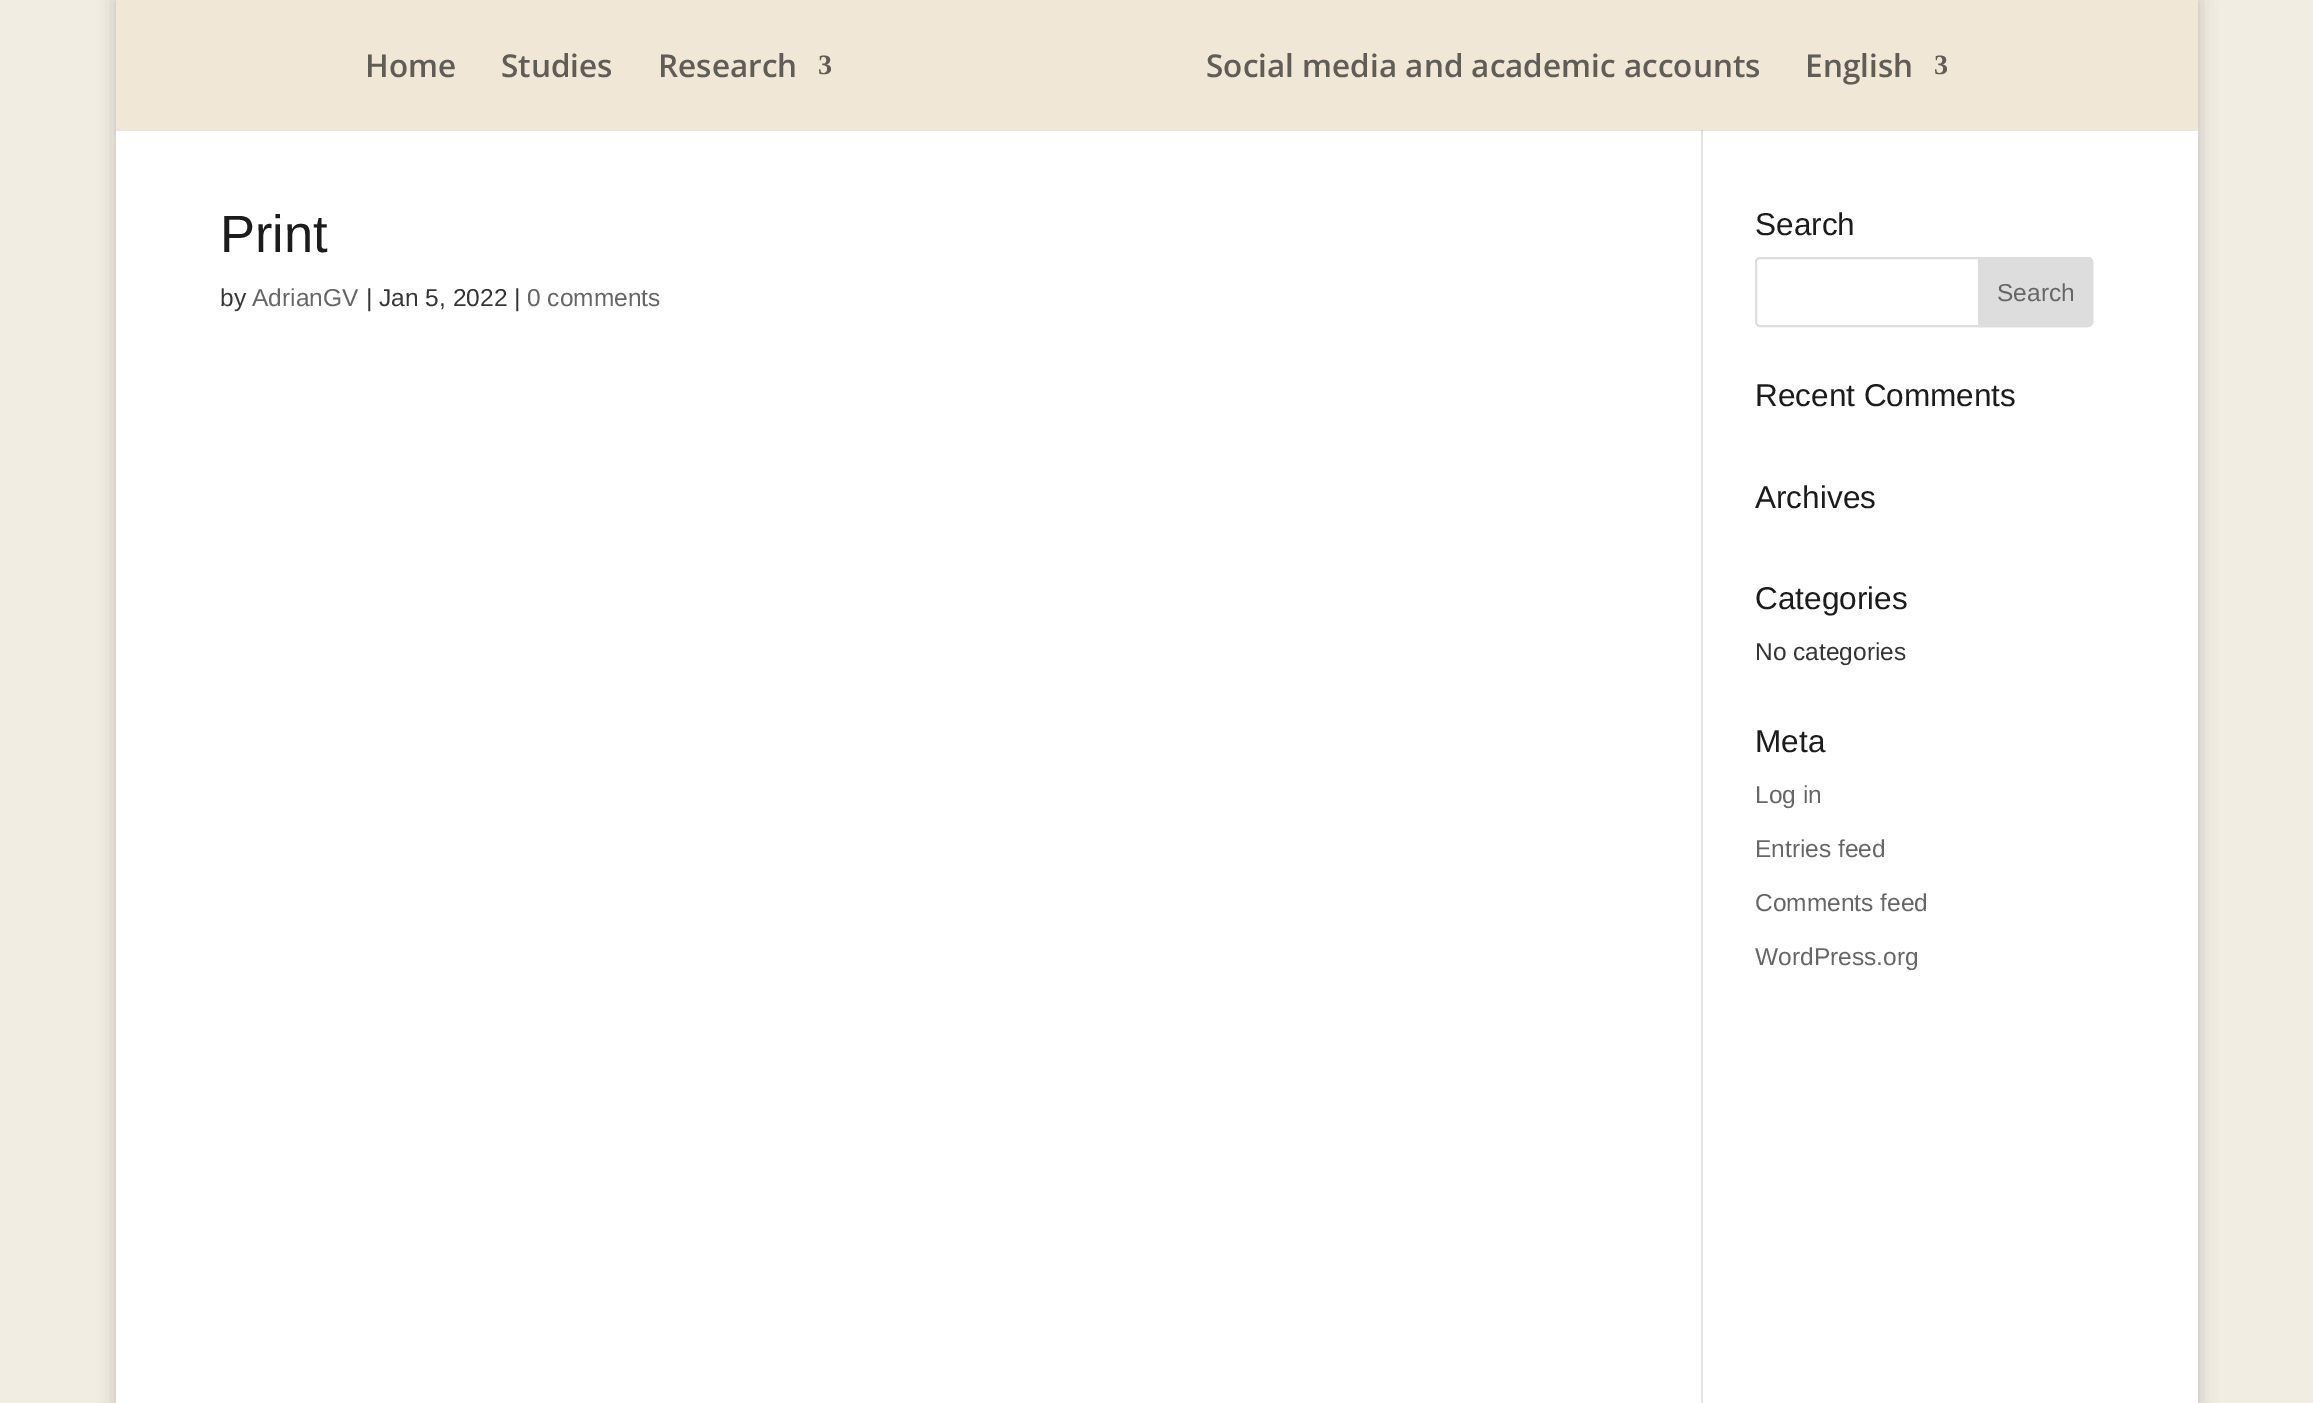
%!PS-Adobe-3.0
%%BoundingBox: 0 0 2313 1403
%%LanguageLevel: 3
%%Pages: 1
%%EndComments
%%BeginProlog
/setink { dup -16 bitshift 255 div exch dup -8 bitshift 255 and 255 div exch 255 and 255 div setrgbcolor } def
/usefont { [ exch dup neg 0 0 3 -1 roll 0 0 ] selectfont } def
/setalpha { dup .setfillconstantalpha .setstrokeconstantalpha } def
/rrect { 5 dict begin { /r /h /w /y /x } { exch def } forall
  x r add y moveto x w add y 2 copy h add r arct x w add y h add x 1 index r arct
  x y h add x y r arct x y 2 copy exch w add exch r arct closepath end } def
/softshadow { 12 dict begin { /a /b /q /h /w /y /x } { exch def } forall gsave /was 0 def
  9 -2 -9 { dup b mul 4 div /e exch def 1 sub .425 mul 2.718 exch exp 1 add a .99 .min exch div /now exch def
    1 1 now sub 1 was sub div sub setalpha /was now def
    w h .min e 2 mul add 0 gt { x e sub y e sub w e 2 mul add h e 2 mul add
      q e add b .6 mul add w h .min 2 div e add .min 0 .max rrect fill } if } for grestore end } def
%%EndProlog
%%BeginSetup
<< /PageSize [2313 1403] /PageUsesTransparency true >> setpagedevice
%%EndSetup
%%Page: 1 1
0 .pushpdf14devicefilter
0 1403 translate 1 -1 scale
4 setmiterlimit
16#F2EDE3 setink
0 0 2313 1403 rectfill
16#000000 setink
116 0 2082 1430 0 9 0.2 softshadow
16#F1E7D6 setink
116 0 2082 130 rectfill
/OpenSans-SemiBold 31.5 usefont
16#605C56 setink
[
    [(Home) 365 77]
    [(Studies) 501 77]
    [(Research) 658 77]
] { aload pop moveto show } forall
/LiberationSerif-Bold 28 usefont
818 74 moveto (3) show
/OpenSans-SemiBold 31.5 usefont
1206 77 moveto (Social media and academic accounts) show
1805 77 moveto (English) show
/LiberationSerif-Bold 28 usefont
1934 74 moveto (3) show
[
    [116 131 2082 1272 16#FFFFFF]
    [116 130 2082 1 16#E6E6E6]
    [1701 131 2 1272 16#E2E2E2]
    [1701 130 2 1 16#CBCBCB]
] { aload pop setink rectfill } forall
/LiberationSans-Regular 52.5 usefont
16#1C1C1C setink
220 252 moveto (Print) show
/LiberationSans-Regular 24.5 usefont
16#353535 setink
220 306 moveto (by) show
16#666666 setink
252 306 moveto (AdrianGV) show
16#353535 setink
366 306 moveto (| Jan 5, 2022 |) show
16#666666 setink
527 306 moveto (0 comments) show
/LiberationSans-Regular 31.5 usefont
16#1C1C1C setink
1755 235 moveto (Search) show
16#DDDDDD setink
2 setlinewidth
1756 258 336 68 4 rrect stroke
1979 258 moveto 2088 258 lineto 2090 258 2092 260 2092 262 curveto 2092 322 lineto 2092 324 2090 326 2088 326 curveto 1979 326 lineto closepath gsave fill grestore
stroke
/LiberationSans-Regular 24.5 usefont
16#666666 setink
1997 301 moveto (Search) show
/LiberationSans-Regular 31.5 usefont
16#1C1C1C setink
[
    [(Recent Comments) 1755 406]
    [(Archives) 1755 508]
    [(Categories) 1755 609]
] { aload pop moveto show } forall
/LiberationSans-Regular 24.5 usefont
16#353535 setink
1755 660 moveto (No categories) show
/LiberationSans-Regular 31.5 usefont
16#1C1C1C setink
1755 752 moveto (Meta) show
/LiberationSans-Regular 24.5 usefont
16#666666 setink
[
    [(Log in) 1755 803]
    [(Entries feed) 1755 857]
    [(Comments feed) 1755 911]
    [(WordPress.org) 1755 965]
] { aload pop moveto show } forall
.poppdf14devicefilter showpage
%%EOF
